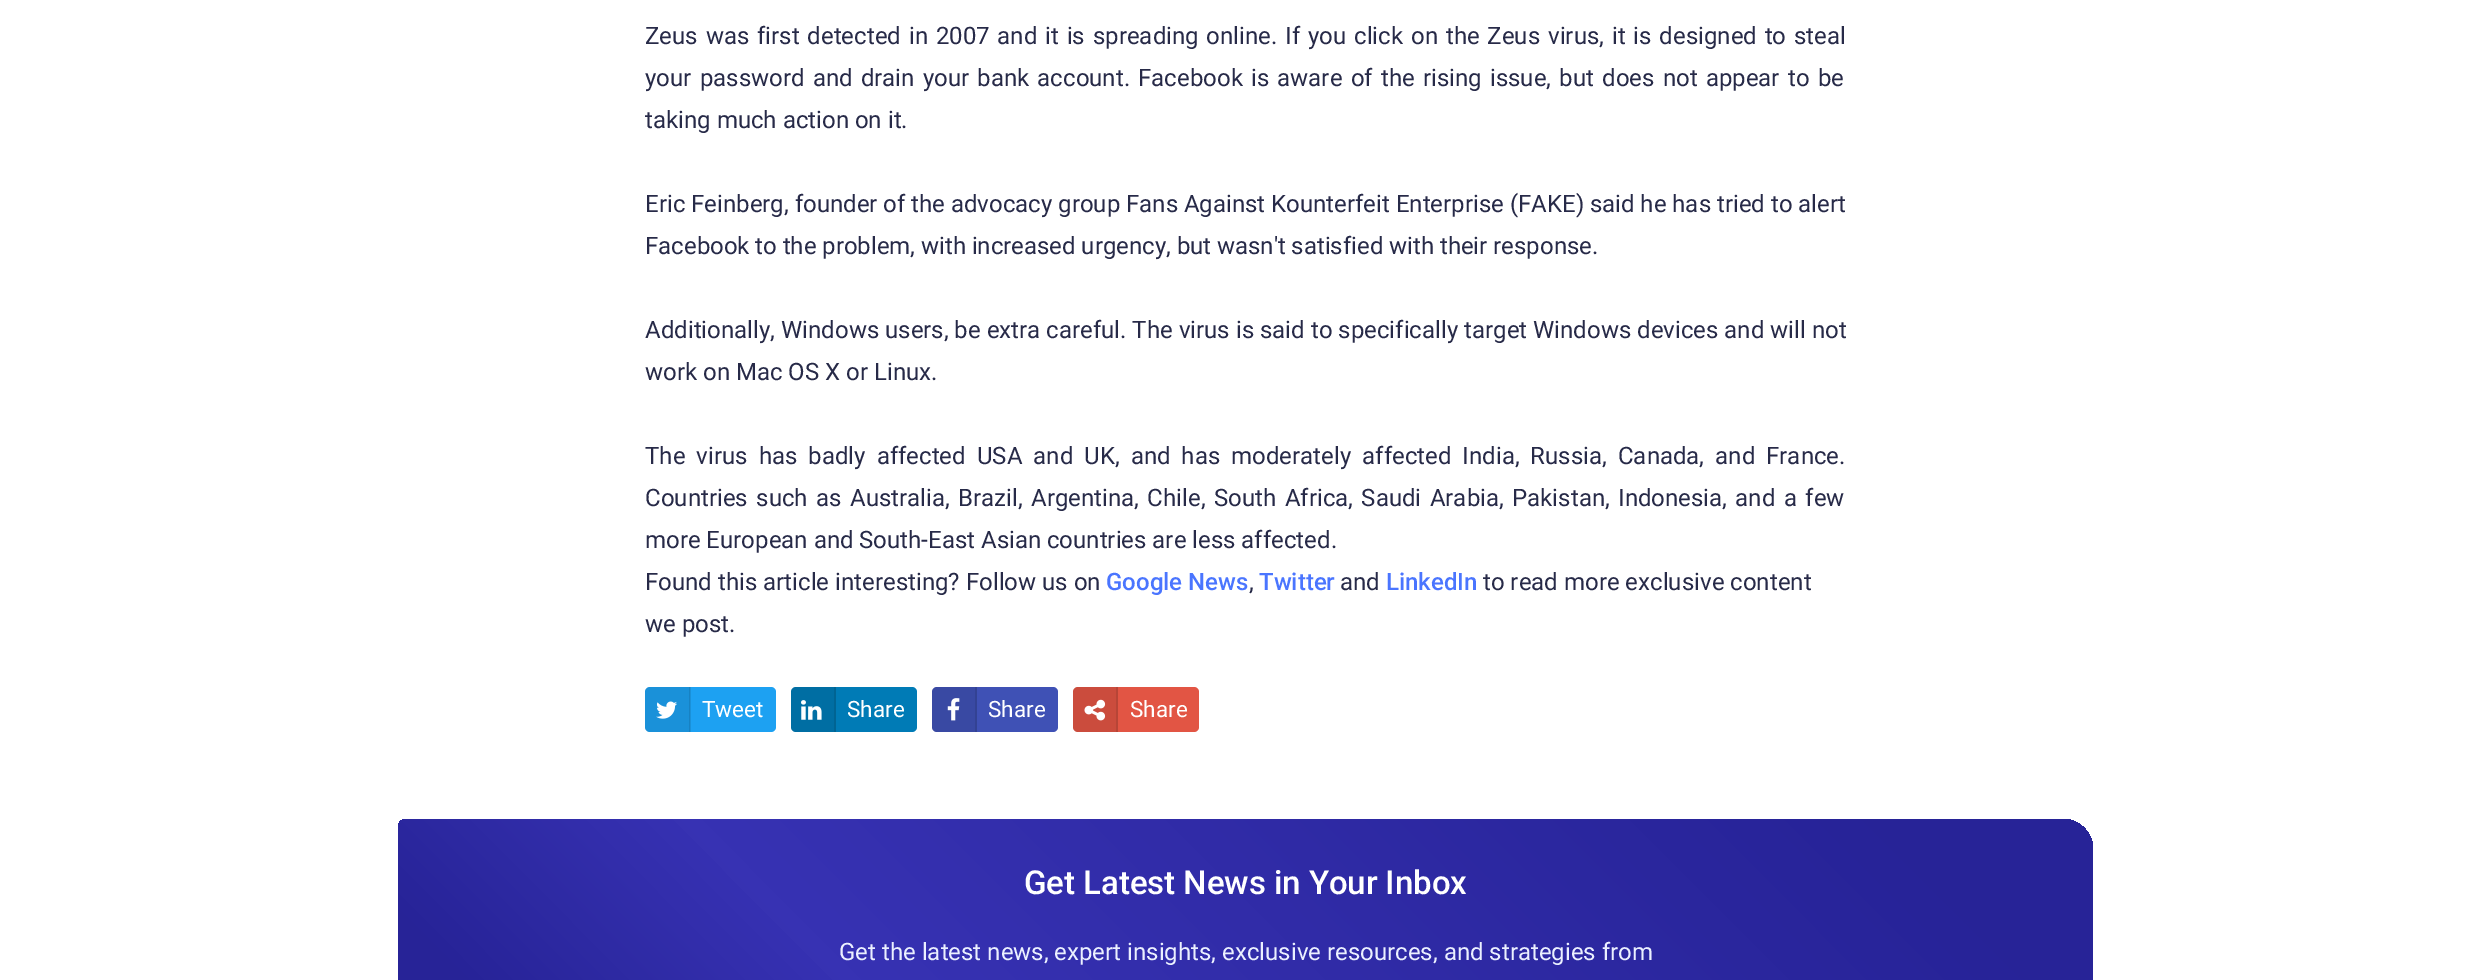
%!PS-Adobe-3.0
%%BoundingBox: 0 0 2489 980
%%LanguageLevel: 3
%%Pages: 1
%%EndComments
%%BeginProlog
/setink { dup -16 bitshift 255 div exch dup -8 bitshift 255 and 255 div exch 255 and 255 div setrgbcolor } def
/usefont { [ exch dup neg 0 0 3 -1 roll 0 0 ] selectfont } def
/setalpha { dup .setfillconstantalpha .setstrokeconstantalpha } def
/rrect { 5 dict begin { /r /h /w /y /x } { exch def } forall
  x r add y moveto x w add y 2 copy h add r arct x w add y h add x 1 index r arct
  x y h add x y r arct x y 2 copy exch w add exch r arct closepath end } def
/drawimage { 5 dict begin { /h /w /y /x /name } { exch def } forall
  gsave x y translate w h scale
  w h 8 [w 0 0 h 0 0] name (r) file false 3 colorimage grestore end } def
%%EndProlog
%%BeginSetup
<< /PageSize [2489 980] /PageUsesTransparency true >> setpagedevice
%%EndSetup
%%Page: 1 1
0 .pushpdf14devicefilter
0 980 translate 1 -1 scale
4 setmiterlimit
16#FFFFFF setink
0 0 2489 980 rectfill
/Roboto-Regular 24 usefont
16#272A48 setink
645 44 moveto 1.9 0 32 (Zeus was first detected in 2007 and it is spreading online. If you click on the Zeus virus, it is designed to steal) widthshow
645 86 moveto 2.25 0 32 (your password and drain your bank account. Facebook is aware of the rising issue, but does not appear to be) widthshow
645 128 moveto (taking much action on it.) show
645 212 moveto -0.1 0 32 (Eric Feinberg, founder of the advocacy group Fans Against Kounterfeit Enterprise \(FAKE\) said he has tried to alert) widthshow
645 254 moveto -0.25 0 32 (Facebook to the problem, with increased urgency, but wasn't satisfied with their response.) widthshow
645 338 moveto (Additionally, Windows users, be extra careful. The virus is said to specifically target Windows devices and will not) show
645 380 moveto (work on Mac OS X or Linux.) show
645 464 moveto 5.1 0 32 (The virus has badly affected USA and UK, and has moderately affected India, Russia, Canada, and France.) widthshow
645 506 moveto 2.5 0 32 (Countries such as Australia, Brazil, Argentina, Chile, South Africa, Saudi Arabia, Pakistan, Indonesia, and a few) widthshow
645 548 moveto -0.1 0 32 (more European and South-East Asian countries are less affected.) widthshow
645 590 moveto (Found this article interesting? Follow us on) show
/Roboto-Medium 24 usefont
16#4A75FF setink
1106 590 moveto (Google News) show
/Roboto-Regular 24 usefont
16#272A48 setink
1249 590 moveto (,) show
/Roboto-Medium 24 usefont
16#4A75FF setink
1259 590 moveto (Twitter) show
/Roboto-Regular 24 usefont
16#272A48 setink
1340 590 moveto (and) show
/Roboto-Medium 24 usefont
16#4A75FF setink
1386 590 moveto (LinkedIn) show
/Roboto-Regular 24 usefont
16#272A48 setink
1483 590 moveto (to read more exclusive content) show
645 632 moveto (we post.) show
16#1DA1F2 setink
645 687 131 45 5 rrect fill
0.1 setalpha
16#000000 setink
650 687 moveto 690 687 lineto 690 732 lineto 650 732 lineto 647 732 645 730 645 727 curveto 645 692 lineto 645 689 647 687 650 687 curveto closepath fill
689 687 2 45 rectfill
1 setalpha
(img1.raw) 656 701 21 18 drawimage
/Roboto-Regular 22.5 usefont
16#FFFFFF setink
702 717 moveto (Tweet) show
16#007BB6 setink
791 687 126 45 5 rrect fill
0.1 setalpha
16#000000 setink
796 687 moveto 836 687 lineto 836 732 lineto 796 732 lineto 793 732 791 730 791 727 curveto 791 692 lineto 791 689 793 687 796 687 curveto closepath fill
1 setalpha
16#006493 setink
834 687 2 45 rectfill
(img2.raw) 801 700 21 20 drawimage
16#FFFFFF setink
847 717 moveto (Share) show
16#3F51B5 setink
932 687 126 45 5 rrect fill
0.1 setalpha
16#000000 setink
937 687 moveto 977 687 lineto 977 732 lineto 937 732 lineto 934 732 932 730 932 727 curveto 932 692 lineto 932 689 934 687 937 687 curveto closepath fill
1 setalpha
16#334293 setink
975 687 2 45 rectfill
(img3.raw) 947 698 13 23 drawimage
16#FFFFFF setink
988 717 moveto (Share) show
16#E25544 setink
1073 687 126 45 5 rrect fill
0.1 setalpha
16#000000 setink
1078 687 moveto 1118 687 lineto 1118 732 lineto 1078 732 lineto 1075 732 1073 730 1073 727 curveto 1073 692 lineto 1073 689 1075 687 1078 687 curveto closepath fill
1 setalpha
16#B74537 setink
1116 687 2 45 rectfill
(img4.raw) 1084 699 22 22 drawimage
16#FFFFFF setink
1130 717 moveto (Share) show
gsave 406 819 moveto 2063 819 lineto 2079.5 819 2093 832.5 2093 849 curveto 2093 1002 lineto 2093 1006.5 2089.5 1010 2085 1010 curveto 428 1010 lineto 411.5 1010 398 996.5 398 980 curveto 398 827 lineto 398 822.5 401.5 819 406 819 curveto closepath clip newpath
<< /ShadingType 2 /ColorSpace /DeviceRGB /Coords [735 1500 1755 481] /Extend [true true] /Function << /FunctionType 3 /Domain [0 1] /Functions [<< /FunctionType 2 /Domain [0 1] /C0 [0.153 0.137 0.592] /C1 [0.153 0.137 0.592] /N 1 >> << /FunctionType 2 /Domain [0 1] /C0 [0.153 0.137 0.592] /C1 [0.216 0.196 0.702] /N 1 >> << /FunctionType 2 /Domain [0 1] /C0 [0.216 0.196 0.702] /C1 [0.153 0.137 0.592] /N 1 >> << /FunctionType 2 /Domain [0 1] /C0 [0.153 0.137 0.592] /C1 [0.153 0.137 0.592] /N 1 >>] /Bounds [0.12 0.31 0.9] /Encode [0 1 0 1 0 1 0 1] >> >> shfill grestore
/Roboto-Medium 33 usefont
1024 894 moveto -0.25 0 32 (Get Latest News in Your Inbox) widthshow
/Roboto-Regular 24 usefont
16#EBF0FF setink
839 960 moveto (Get the latest news, expert insights, exclusive resources, and strategies from) show
.poppdf14devicefilter showpage
%%EOF
